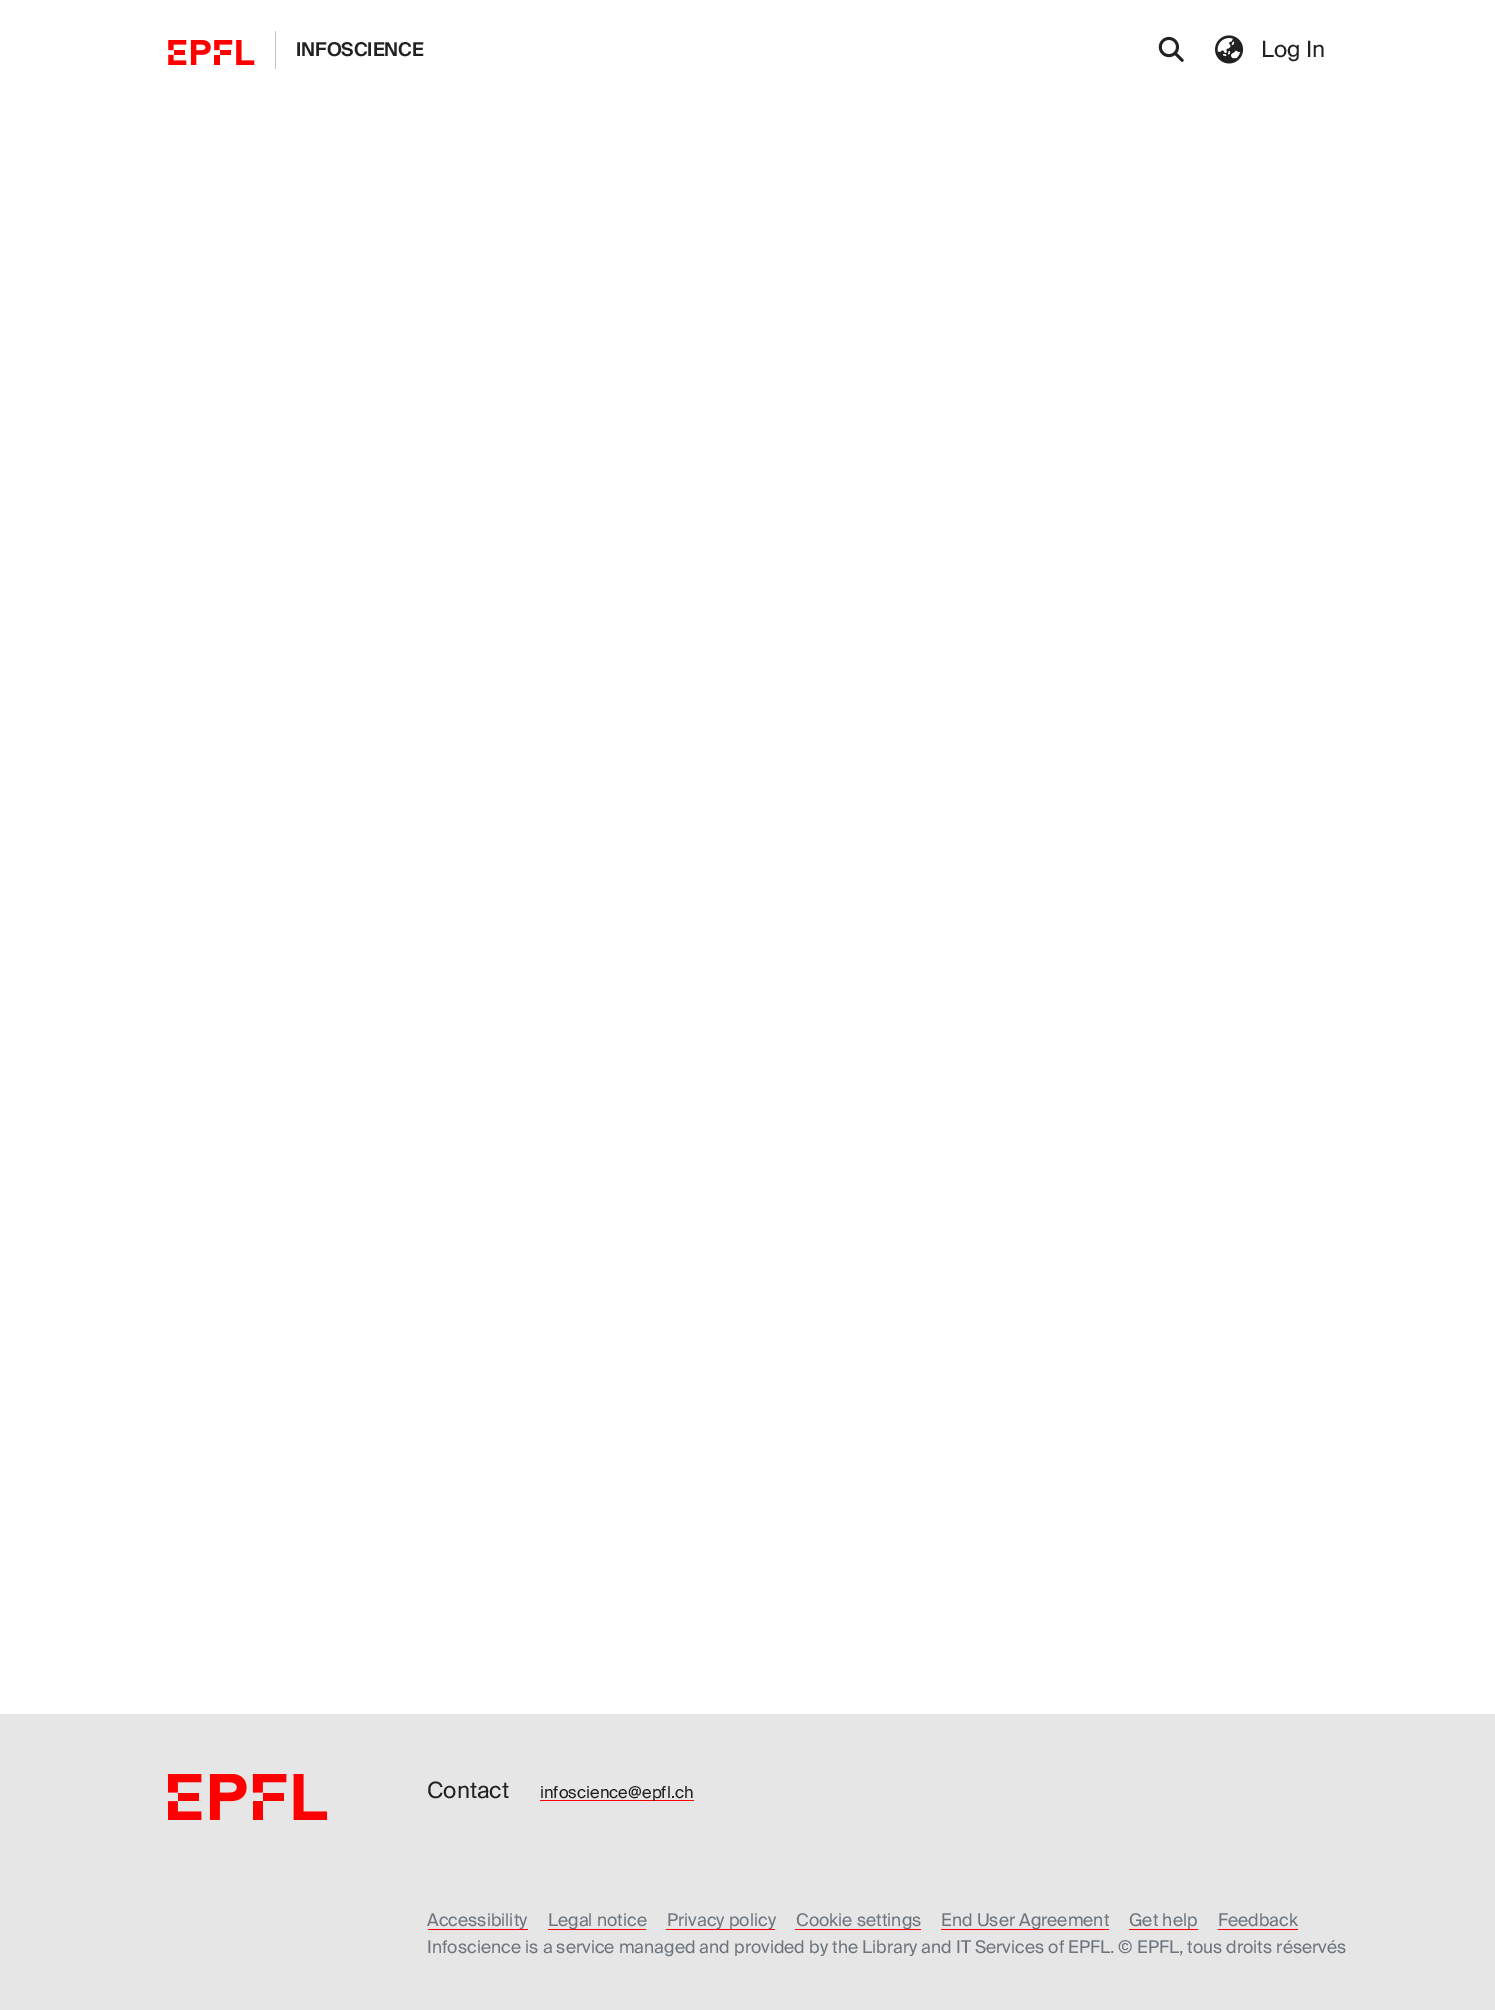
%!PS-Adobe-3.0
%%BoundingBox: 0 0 1495 2010
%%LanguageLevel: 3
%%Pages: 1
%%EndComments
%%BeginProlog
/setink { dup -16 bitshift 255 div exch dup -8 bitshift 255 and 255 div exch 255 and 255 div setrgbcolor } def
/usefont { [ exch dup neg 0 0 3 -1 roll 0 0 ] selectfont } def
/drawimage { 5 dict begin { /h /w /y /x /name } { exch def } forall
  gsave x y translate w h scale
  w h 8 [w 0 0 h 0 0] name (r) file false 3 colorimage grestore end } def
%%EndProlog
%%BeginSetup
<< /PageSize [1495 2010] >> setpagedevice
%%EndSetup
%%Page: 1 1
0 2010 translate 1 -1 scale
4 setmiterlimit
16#FFFFFF setink
0 0 1495 2010 rectfill
16#C1C1C1 setink
275 31 1 38 rectfill
(img1.raw) 168 40 87 25 drawimage
/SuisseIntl-SemiBold 19 usefont
16#212121 setink
296 56 moveto (INFOSCIENCE) show
(img2.raw) 1158 36 26 26 drawimage
(img3.raw) 1215 35 29 29 drawimage
/SuisseIntl-Regular 22.5 usefont
1261 57 moveto (Log In) show
16#E6E6E6 setink
0 1714 1495 296 rectfill
(img4.raw) 168 1774 160 46 drawimage
16#212121 setink
427 1798 moveto (Contact) show
16#FF0000 setink
540 1800 154 1 rectfill
/SuisseIntl-Regular 16.5 usefont
16#212121 setink
540 1798 moveto (infoscience@epfl.ch) show
16#FF0000 setink
428 1929 100 1 rectfill
/SuisseIntl-Regular 17.5 usefont
16#6C757D setink
427 1926 moveto (Accessibility) show
16#FF0000 setink
548 1929 98 1 rectfill
16#6C757D setink
548 1926 moveto (Legal notice) show
16#FF0000 setink
666 1929 109 1 rectfill
16#6C757D setink
667 1926 moveto (Privacy policy) show
16#FF0000 setink
795 1929 126 1 rectfill
16#6C757D setink
796 1926 moveto (Cookie settings) show
16#FF0000 setink
941 1929 168 1 rectfill
16#6C757D setink
941 1926 moveto (End User Agreement) show
16#FF0000 setink
1129 1929 69 1 rectfill
16#6C757D setink
1129 1926 moveto (Get help) show
1218 1926 moveto (Feedback) show
16#FF0000 setink
1218 1929 80 1 rectfill
16#6C757D setink
427 1953 moveto (Infoscience is a service managed and provided by the Library and IT Services of EPFL. © EPFL, tous droits réservés) show
showpage
%%EOF
